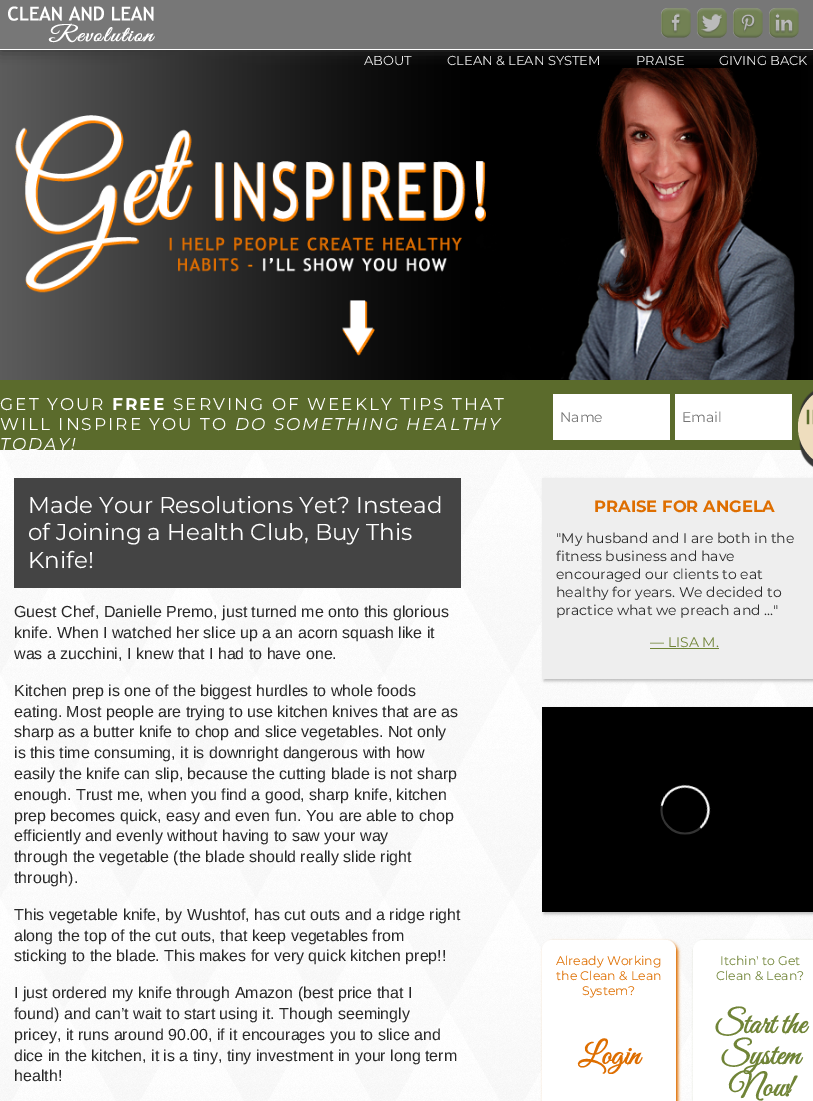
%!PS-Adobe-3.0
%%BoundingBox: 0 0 813 1101
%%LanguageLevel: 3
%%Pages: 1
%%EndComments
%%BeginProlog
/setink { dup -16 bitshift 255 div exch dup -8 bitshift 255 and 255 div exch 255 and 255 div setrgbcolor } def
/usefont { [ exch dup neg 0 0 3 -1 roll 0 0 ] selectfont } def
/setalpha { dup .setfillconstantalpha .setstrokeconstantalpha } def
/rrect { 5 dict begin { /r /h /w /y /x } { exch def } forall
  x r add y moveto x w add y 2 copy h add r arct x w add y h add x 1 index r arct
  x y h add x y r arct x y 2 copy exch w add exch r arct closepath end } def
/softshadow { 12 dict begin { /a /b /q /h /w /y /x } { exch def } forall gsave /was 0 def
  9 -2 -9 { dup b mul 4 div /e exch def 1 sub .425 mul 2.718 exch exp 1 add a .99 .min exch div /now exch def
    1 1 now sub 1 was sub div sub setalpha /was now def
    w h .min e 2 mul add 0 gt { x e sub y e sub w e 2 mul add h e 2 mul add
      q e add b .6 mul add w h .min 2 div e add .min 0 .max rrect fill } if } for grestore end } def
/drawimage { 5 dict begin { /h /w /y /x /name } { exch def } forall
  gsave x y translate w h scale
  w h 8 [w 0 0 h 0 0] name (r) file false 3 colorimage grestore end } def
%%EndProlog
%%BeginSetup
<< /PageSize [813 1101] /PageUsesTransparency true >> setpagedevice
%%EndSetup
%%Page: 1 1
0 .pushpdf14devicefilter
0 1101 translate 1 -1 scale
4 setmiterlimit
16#777777 setink
0 0 813 1101 rectfill
(img1.raw) 0 50 813 330 drawimage
(img2.raw) 15 68 780 312 drawimage
gsave
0 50 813 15 rectclip
16#333333 setink
0 0 813 50 0 7.5 1 softshadow
grestore
16#FFFFFF setink
0 49 813 1 rectfill
(img3.raw) 8 6 147 37 drawimage
(img4.raw) 661 8 30 30 drawimage
(img5.raw) 697 8 30 30 drawimage
(img6.raw) 733 8 30 30 drawimage
(img7.raw) 769 8 30 30 drawimage
/Montserrat-Regular 13 usefont
16#EEEEEE setink
[
    [(ABOUT) 364 65]
    [(CLEAN & LEAN SYSTEM) 447 65]
    [(PRAISE) 636 65]
    [(GIVING BACK) 719 65]
] { aload pop moveto show } forall
16#5B6B2C setink
0 380 813 70 rectfill
/Montserrat-Regular 17 usefont
16#FFFFFF setink
0 410 moveto 2 0 (GET YOUR) ashow
/Montserrat-Bold 17 usefont
112 410 moveto 2 0 (FREE) ashow
/Montserrat-Regular 17 usefont
173 410 moveto 2 0 (SERVING OF WEEKLY TIPS THAT) ashow
0 430 moveto 2 0 (WILL INSPIRE YOU TO) ashow
/Montserrat-Italic 17 usefont
235 430 moveto 2 0 (DO SOMETHING HEALTHY) ashow
0 450 moveto 2 0 (TODAY!) ashow
553 394 117 46 rectfill
/Montserrat-Regular 14 usefont
16#757575 setink
560 422 moveto (Name) show
16#FFFFFF setink
675 394 117 46 rectfill
16#757575 setink
682 422 moveto (Email) show
(img9.raw) 0 450 813 651 drawimage
16#333333 setink
800 387 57 84 42 0.5 1 softshadow
16#EEDDBE setink
798 385 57 84 42 rrect fill
(img8.raw) 806 409 7 16 drawimage
16#444444 setink
14 478 447 110 rectfill
/Montserrat-Regular 23 usefont
16#FFFFFF setink
[
    [(Made Your Resolutions Yet? Instead) 28 513]
    [(of Joining a Health Club, Buy This) 28 540]
    [(Knife!) 28 568]
] { aload pop moveto show } forall
/LiberationSans-Regular 16 usefont
16#282828 setink
[
    [(Guest Chef, Danielle Premo, just turned me onto this glorious) 14 617]
    [(knife. When I watched her slice up a an acorn squash like it) 14 638]
    [(was a zucchini, I knew that I had to have one.) 14 659]
    [(Kitchen prep is one of the biggest hurdles to whole foods) 14 696]
    [(eating. Most people are trying to use kitchen knives that are as) 14 717]
    [(sharp as a butter knife to chop and slice vegetables. Not only) 14 737]
    [(is this time consuming, it is downright dangerous with how) 14 758]
    [(easily the knife can slip, because the cutting blade is not sharp) 14 779]
    [(enough. Trust me, when you find a good, sharp knife, kitchen) 14 800]
    [(prep becomes quick, easy and even fun. You are able to chop) 14 821]
    [(efficiently and evenly without having to saw your way) 14 841]
    [(through the vegetable \(the blade should really slide right) 14 862]
    [(through\).) 14 883]
    [(This vegetable knife, by Wushtof, has cut outs and a ridge right) 14 920]
    [(along the top of the cut outs, that keep vegetables from) 14 941]
    [(sticking to the blade. This makes for very quick kitchen prep!!) 14 961]
    [(I just ordered my knife through Amazon \(best price that I) 14 998]
    [(found\) and can’t wait to start using it. Though seemingly) 14 1019]
    [(pricey, it runs around 90.00, if it encourages you to slice and) 14 1040]
    [(dice in the kitchen, it is a tiny, tiny investment in your long term) 14 1061]
    [(health!) 14 1081]
] { aload pop moveto show } forall
16#BBBBBB setink
544 480 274 201 0 1.5 1 softshadow
16#EEEEEE setink
542 478 271 201 rectfill
/Montserrat-Bold 16.4 usefont
16#DE6E00 setink
594 512 moveto (PRAISE FOR ANGELA) show
/Montserrat-Regular 14 usefont
16#282828 setink
[
    [("My husband and I are both in the) 556 543]
    [(fitness business and have) 556 561]
    [(encouraged our clients to eat) 556 579]
    [(healthy for years. We decided to) 556 597]
    [(practice what we preach and ...") 556 615]
] { aload pop moveto show } forall
16#708437 setink
650 647 moveto (— LISA M.) show
650 648 69 1 rectfill
16#BBBBBB setink
544 709 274 205 0 1.5 1 softshadow
(img10.raw) 542 707 271 205 drawimage
16#DE6E00 setink
544 942 134 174 10 1.5 1 softshadow
16#FFFFFF setink
542 940 134 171 10 rrect fill
/Montserrat-Regular 12.5 usefont
16#DE6E00 setink
[
    [(Already Working) 556 965]
    [(the Clean & Lean) 556 980]
    [(System?) 582 995]
] { aload pop moveto show } forall
/GreatVibes-Bold 31.5 usefont
578 1064 moveto (Login) show
16#708437 setink
695 942 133 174 10 1.5 1 softshadow
16#FFFFFF setink
693 940 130 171 10 rrect fill
/Montserrat-Regular 12.5 usefont
16#708437 setink
720 965 moveto (Itchin' to Get) show
716 980 moveto (Clean & Lean?) show
/GreatVibes-Bold 31.5 usefont
[
    [(Start the) 714 1033]
    [(System) 720 1064]
    [(No) 729 1096]
] { aload pop moveto show } forall
773 1096 moveto -6 0 (w!) ashow
.poppdf14devicefilter showpage
%%EOF
